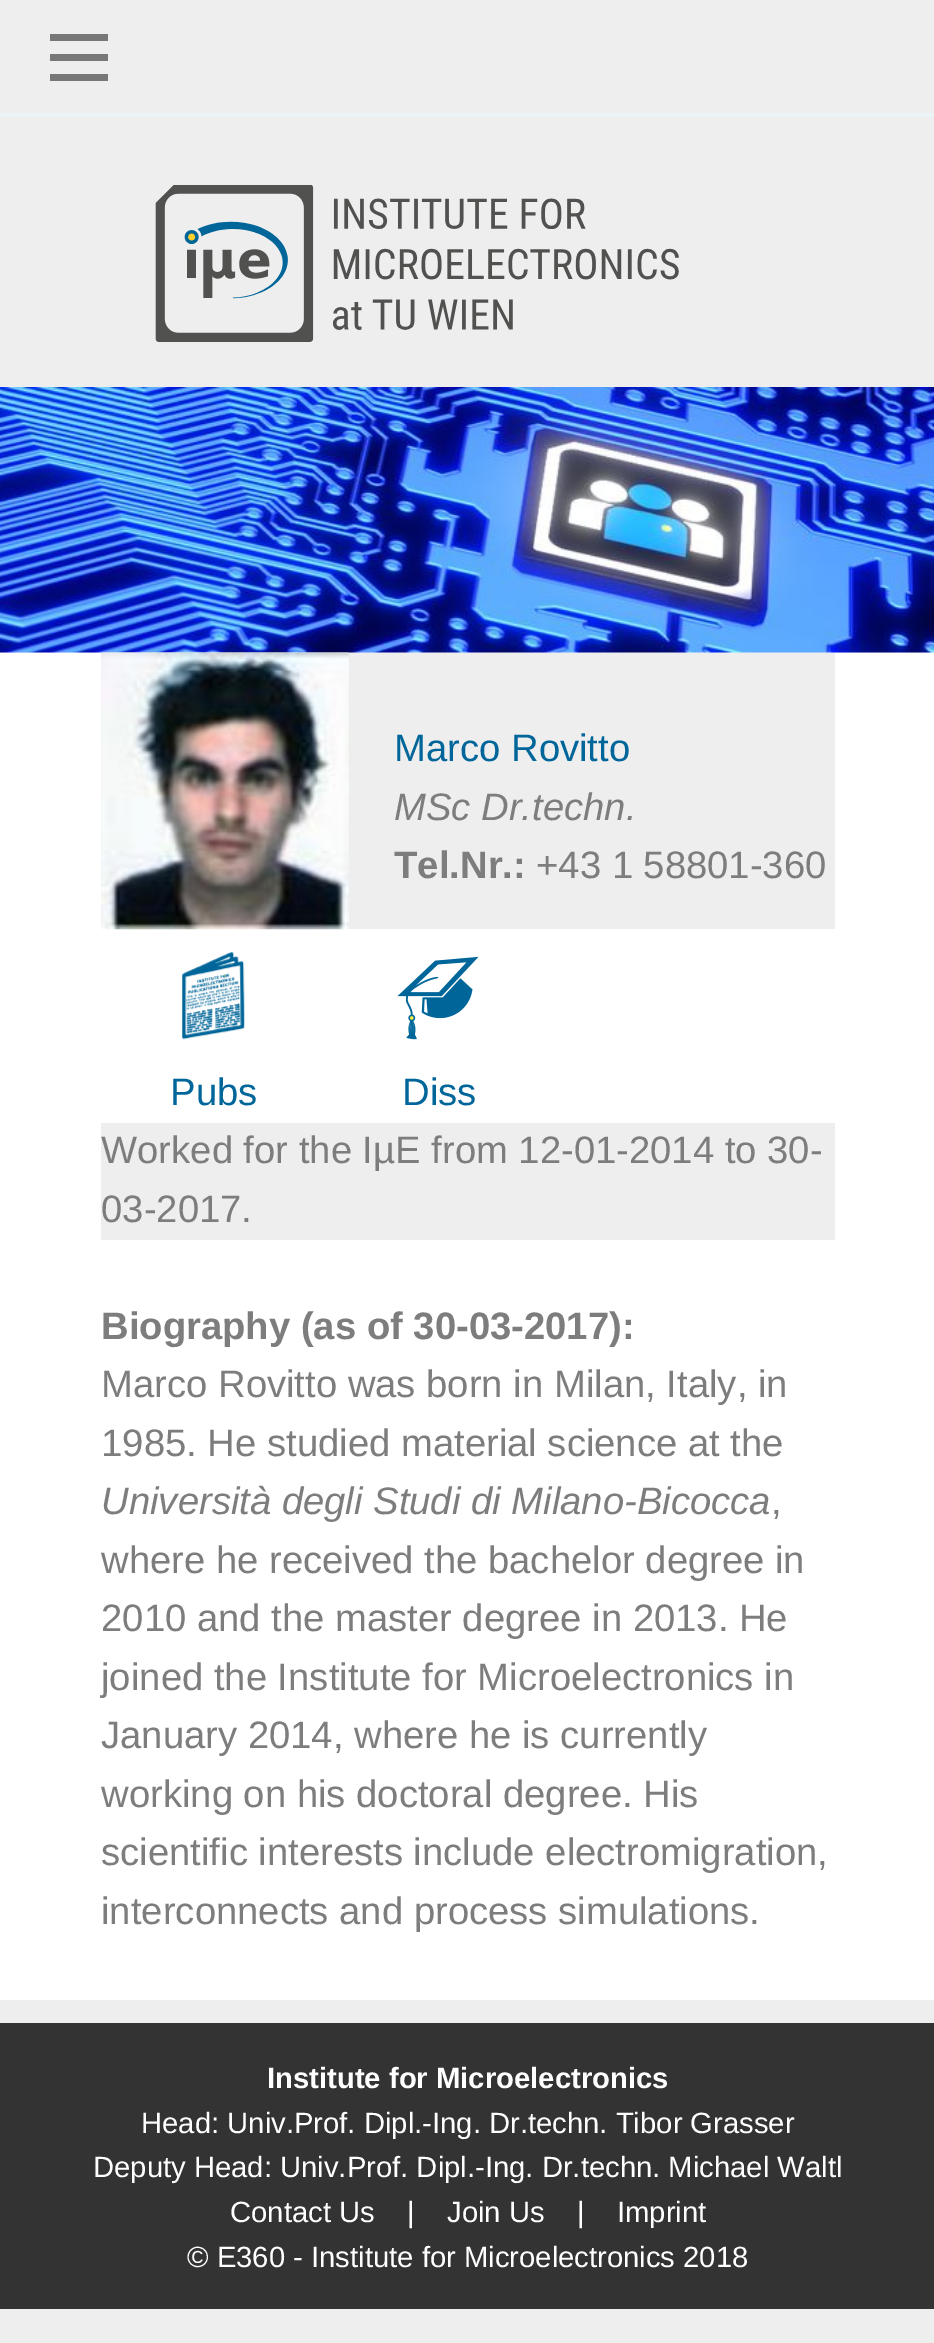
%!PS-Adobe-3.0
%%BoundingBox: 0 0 934 2343
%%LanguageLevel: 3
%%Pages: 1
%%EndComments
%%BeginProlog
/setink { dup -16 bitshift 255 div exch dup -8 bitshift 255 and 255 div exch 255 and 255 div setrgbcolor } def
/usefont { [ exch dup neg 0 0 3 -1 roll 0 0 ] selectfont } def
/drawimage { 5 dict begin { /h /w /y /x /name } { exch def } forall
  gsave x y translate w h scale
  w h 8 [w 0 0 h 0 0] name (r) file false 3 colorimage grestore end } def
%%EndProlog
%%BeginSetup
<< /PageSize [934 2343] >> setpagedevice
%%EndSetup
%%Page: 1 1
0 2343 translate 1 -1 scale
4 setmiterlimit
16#EEEEEE setink
0 0 934 2343 rectfill
[
    [50 54 58 7 16#777777]
    [50 34 58 7 16#777777]
    [50 74 58 7 16#777777]
    [0 113 934 4 16#EBF3F6]
] { aload pop setink rectfill } forall
(img1.raw) 155 185 524 157 drawimage
(img2.raw) 0 387 934 266 drawimage
16#FFFFFF setink
0 653 934 1347 rectfill
16#EEEEEE setink
101 653 734 276 rectfill
(img3.raw) 101 652 248 278 drawimage
/LiberationSans-Regular 38.25 usefont
16#00669A setink
394 761 moveto (Marco Rovitto) show
/LiberationSans-Italic 38.25 usefont
16#7D7D7D setink
394 820 moveto (MSc Dr.techn.) show
/LiberationSans-Bold 38.25 usefont
394 878 moveto (Tel.Nr.:) show
/LiberationSans-Regular 38.25 usefont
536 878 moveto (+43 1 58801-360) show
(img4.raw) 182 952 63 88 drawimage
16#00669A setink
170 1105 moveto (Pubs) show
(img5.raw) 397 956 82 84 drawimage
402 1105 moveto (Diss) show
16#EEEEEE setink
101 1123 734 117 rectfill
16#7D7D7D setink
101 1163 moveto (Worked for the IµE from 12-01-2014 to 30-) show
101 1222 moveto (03-2017.) show
/LiberationSans-Bold 38.25 usefont
101 1339 moveto (Biography \(as of 30-03-2017\):) show
/LiberationSans-Regular 38.25 usefont
101 1397 moveto (Marco Rovitto was born in Milan, Italy, in) show
101 1456 moveto (1985. He studied material science at the) show
/LiberationSans-Italic 38.25 usefont
101 1514 moveto (Università degli Studi di Milano-Bicocca) show
/LiberationSans-Regular 38.25 usefont
[
    [(,) 771 1514]
    [(where he received the bachelor degree in) 101 1573]
    [(2010 and the master degree in 2013. He) 101 1631]
    [(joined the Institute for Microelectronics in) 101 1690]
    [(January 2014, where he is currently) 101 1748]
    [(working on his doctoral degree. His) 101 1807]
    [(scientific interests include electromigration,) 101 1865]
    [(interconnects and process simulations.) 101 1924]
] { aload pop moveto show } forall
16#333333 setink
0 2023 934 286 rectfill
/LiberationSans-Bold 29.25 usefont
16#FFFFFF setink
267 2088 moveto (Institute for Microelectronics) show
/LiberationSans-Regular 29.25 usefont
[
    [(Head: Univ.Prof. Dipl.-Ing. Dr.techn. Tibor Grasser) 141 2133]
    [(Deputy Head: Univ.Prof. Dipl.-Ing. Dr.techn. Michael Waltl) 93 2177]
    [(Contact Us) 230 2222]
    [(|) 407 2222]
    [(Join Us) 447 2222]
    [(|) 577 2222]
    [(Imprint) 617 2222]
    [(© E360 - Institute for Microelectronics 2018) 187 2267]
] { aload pop moveto show } forall
showpage
%%EOF
